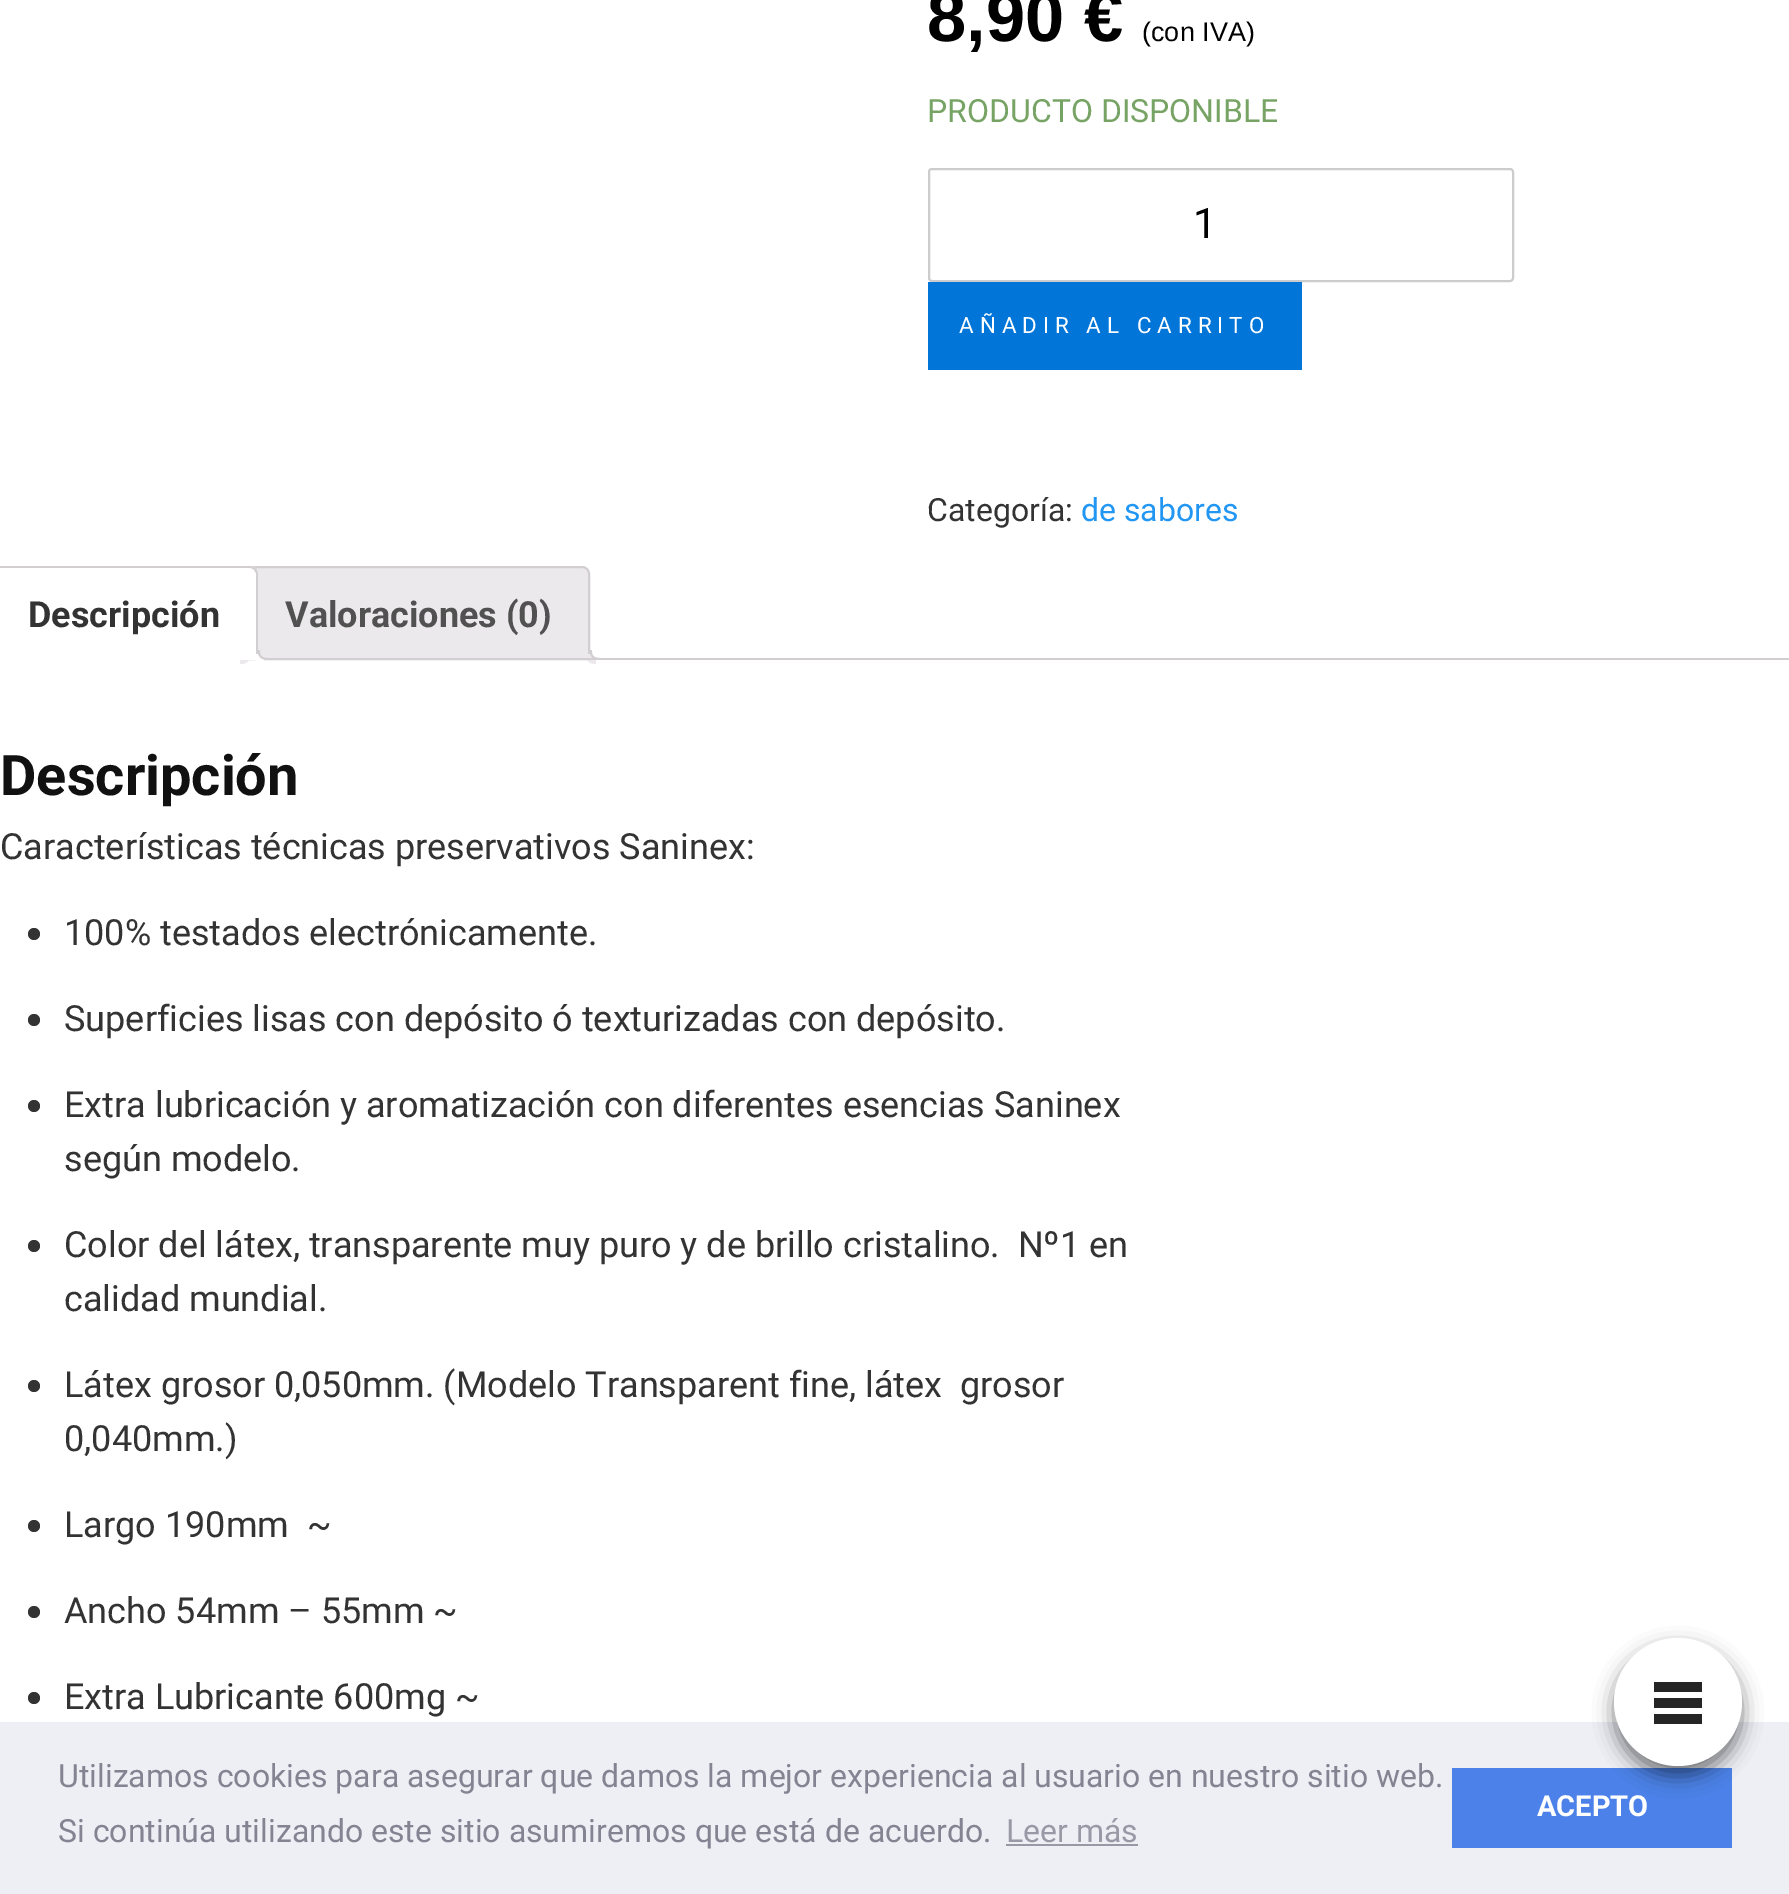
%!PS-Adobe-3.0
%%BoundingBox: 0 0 1789 1894
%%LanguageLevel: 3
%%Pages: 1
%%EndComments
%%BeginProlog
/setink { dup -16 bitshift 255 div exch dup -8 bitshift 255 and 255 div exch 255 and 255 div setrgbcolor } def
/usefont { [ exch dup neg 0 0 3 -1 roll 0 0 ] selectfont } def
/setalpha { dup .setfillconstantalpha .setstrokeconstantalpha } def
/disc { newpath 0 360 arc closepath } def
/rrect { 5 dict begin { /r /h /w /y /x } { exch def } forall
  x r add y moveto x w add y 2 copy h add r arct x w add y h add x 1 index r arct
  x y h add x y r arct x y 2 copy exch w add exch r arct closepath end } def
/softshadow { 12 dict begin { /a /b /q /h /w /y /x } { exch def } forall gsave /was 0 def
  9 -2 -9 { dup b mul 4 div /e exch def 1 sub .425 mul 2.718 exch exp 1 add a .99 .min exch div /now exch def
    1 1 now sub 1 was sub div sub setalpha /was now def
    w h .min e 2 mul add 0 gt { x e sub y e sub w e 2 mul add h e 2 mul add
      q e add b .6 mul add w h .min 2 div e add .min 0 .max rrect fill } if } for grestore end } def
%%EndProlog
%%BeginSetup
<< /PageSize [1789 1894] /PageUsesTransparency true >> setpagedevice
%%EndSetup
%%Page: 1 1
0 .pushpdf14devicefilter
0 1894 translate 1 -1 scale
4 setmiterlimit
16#FFFFFF setink
0 0 1789 1894 rectfill
/LiberationSans-Bold 70.5 usefont
16#000000 setink
927 41 moveto (8,90 €) show
/LiberationSans-Regular 27 usefont
1142 41 moveto (\(con IVA\)) show
/Roboto-Regular 32 usefont
16#77A464 setink
927 122 moveto (PRODUCTO DISPONIBLE) show
16#CCCCCC setink
2 setlinewidth
929 169 584 112 3 rrect stroke
/Roboto-Regular 42 usefont
16#000000 setink
1193 238 moveto (1) show
16#0275D8 setink
928 282 374 88 rectfill
/Roboto-Regular 22.4 usefont
16#FFFFFF setink
959 333 moveto 6 0 (AÑADIR AL CARRITO) ashow
/Roboto-Regular 32 usefont
16#333333 setink
927 521 moveto (Categoría:) show
16#2196F3 setink
1081 521 moveto (de sabores) show
16#EBE9EB setink
254 567 moveto 582 567 lineto 586 567 589 570 589 574 curveto 589 659 lineto 247 659 lineto 247 574 lineto 247 570 250 567 254 567 curveto closepath gsave fill grestore
16#D3CED2 setink
stroke
16#EBE9EB setink
240 659.5 moveto 240 664 lineto 247 664 250 661 250 654 curveto 245.5 654 lineto 245 657 243 659 240 659.5 curveto closepath fill
16#FFFFFF setink
0 566 moveto 250 566 lineto 254.5 566 258 569.5 258 574 curveto 258 660 lineto -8 660 lineto -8 574 lineto -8 569.5 -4.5 566 0 566 curveto closepath fill
16#D3CED2 setink
-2 566 moveto -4 566 -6 567 -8 568 curveto -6 570 lineto -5 569 -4 568 -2 568 curveto 250 568 lineto 252 568 253 569 254 570 curveto 256 568 lineto 254 567 252 566 250 566 curveto closepath fill
258 660 moveto 258 574 lineto 258 572 257 570 256 568 curveto 254 570 lineto 256 573 lineto 256 658 lineto closepath fill
16#FFFFFF setink
258 660 moveto 256 658 lineto -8 658 lineto -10 660 lineto closepath fill
/Roboto-Bold 36 usefont
16#333333 setink
28 627 moveto (Descripción) show
16#FFFFFF setink
254 654 moveto 254 661 257 664 264 664 curveto 264 659.5 lineto 261 659 259 657 258.5 654 curveto closepath fill
16#D3CED2 setink
258 650 moveto 268 650 lineto 268 660 lineto 263 660 258 658 258 652 curveto closepath 260 650 moveto 268 650 lineto 268 658 lineto 264 658 260 657 260 652 curveto closepath eofill
16#515151 setink
285 627 moveto (Valoraciones \(0\)) show
16#EBE9EB setink
586 654 moveto 586 661 589 664 596 664 curveto 596 659.5 lineto 593 659 591 657 590.5 654 curveto closepath fill
16#D3CED2 setink
590 650 moveto 600 650 lineto 600 660 lineto 595 660 590 658 590 652 curveto closepath 592 650 moveto 600 650 lineto 600 658 lineto 596 658 592 657 592 652 curveto closepath eofill
586 658 1203 2 rectfill
/Roboto-Bold 56 usefont
16#111111 setink
0 795 moveto (Descripción) show
/Roboto-Regular 36 usefont
16#333333 setink
0 859 moveto (Características técnicas preservativos Saninex:) show
34 934 6 disc fill
64 945 moveto (100% testados electrónicamente.) show
34 1020 6 disc fill
64 1031 moveto (Superficies lisas con depósito ó texturizadas con depósito.) show
34 1106 6 disc fill
64 1117 moveto (Extra lubricación y aromatización con diferentes esencias Saninex) show
64 1171 moveto (según modelo.) show
34 1246 6 disc fill
64 1257 moveto (Color del látex, transparente muy puro y de brillo cristalino.  Nº1 en) show
64 1311 moveto (calidad mundial.) show
34 1386 6 disc fill
64 1397 moveto (Látex grosor 0,050mm. \(Modelo Transparent fine, látex  grosor) show
64 1451 moveto (0,040mm.\)) show
34 1526 6 disc fill
64 1537 moveto (Largo 190mm  ~) show
34 1612 6 disc fill
64 1623 moveto (Ancho 54mm – 55mm ~) show
34 1698 6 disc fill
64 1709 moveto (Extra Lubricante 600mg ~) show
16#EDEFF5 setink
0 1722 1789 172 rectfill
16#4B81E8 setink
1452 1768 280 80 rectfill
16#000000 setink
1614 1648 128 128 64 10 0.5 softshadow
16#FFFFFF setink
1678 1702 64 disc fill
[
    [1654 1698 48 10 16#252525]
    [1654 1682 48 10 16#252525]
    [1654 1714 48 10 16#252525]
] { aload pop setink rectfill } forall
/Roboto-Regular 32 usefont
16#838391 setink
58 1787 moveto (Utilizamos cookies para asegurar que damos la mejor experiencia al usuario en nuestro sitio web.) show
58 1842 moveto (Si continúa utilizando este sitio asumiremos que está de acuerdo.) show
16#9899A5 setink
1006 1842 moveto (Leer más) show
1006 1844 132 2 rectfill
/Roboto-Bold 29 usefont
16#FFFFFF setink
1537 1816 moveto (ACEPTO) show
.poppdf14devicefilter showpage
%%EOF
